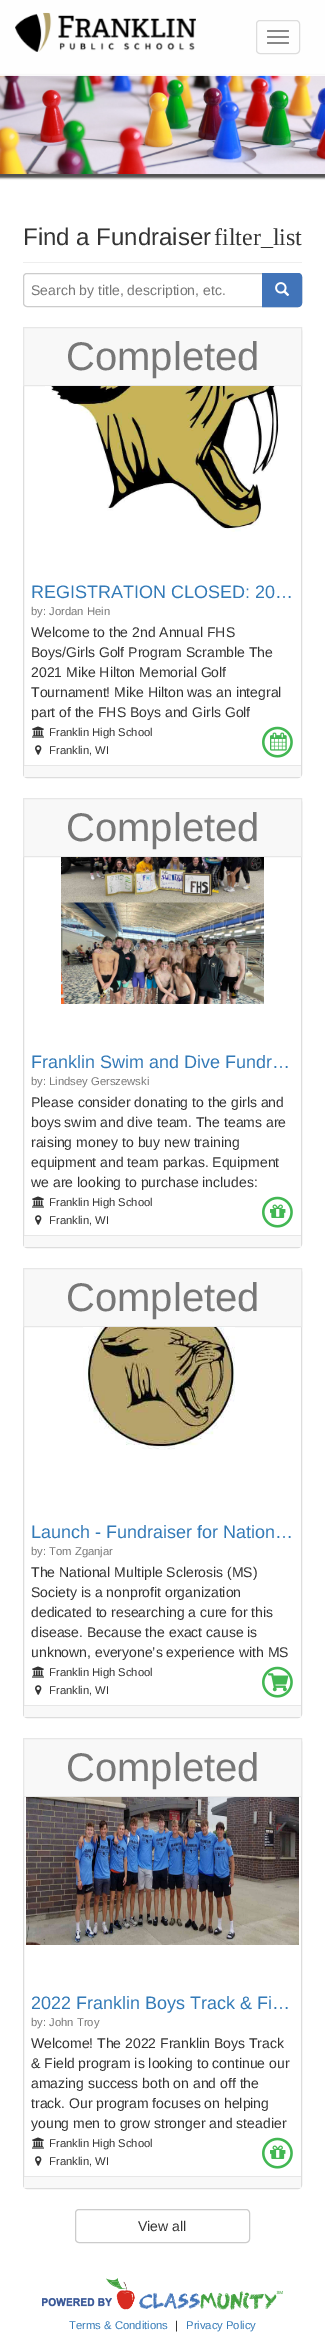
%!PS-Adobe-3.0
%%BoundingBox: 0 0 325 2339
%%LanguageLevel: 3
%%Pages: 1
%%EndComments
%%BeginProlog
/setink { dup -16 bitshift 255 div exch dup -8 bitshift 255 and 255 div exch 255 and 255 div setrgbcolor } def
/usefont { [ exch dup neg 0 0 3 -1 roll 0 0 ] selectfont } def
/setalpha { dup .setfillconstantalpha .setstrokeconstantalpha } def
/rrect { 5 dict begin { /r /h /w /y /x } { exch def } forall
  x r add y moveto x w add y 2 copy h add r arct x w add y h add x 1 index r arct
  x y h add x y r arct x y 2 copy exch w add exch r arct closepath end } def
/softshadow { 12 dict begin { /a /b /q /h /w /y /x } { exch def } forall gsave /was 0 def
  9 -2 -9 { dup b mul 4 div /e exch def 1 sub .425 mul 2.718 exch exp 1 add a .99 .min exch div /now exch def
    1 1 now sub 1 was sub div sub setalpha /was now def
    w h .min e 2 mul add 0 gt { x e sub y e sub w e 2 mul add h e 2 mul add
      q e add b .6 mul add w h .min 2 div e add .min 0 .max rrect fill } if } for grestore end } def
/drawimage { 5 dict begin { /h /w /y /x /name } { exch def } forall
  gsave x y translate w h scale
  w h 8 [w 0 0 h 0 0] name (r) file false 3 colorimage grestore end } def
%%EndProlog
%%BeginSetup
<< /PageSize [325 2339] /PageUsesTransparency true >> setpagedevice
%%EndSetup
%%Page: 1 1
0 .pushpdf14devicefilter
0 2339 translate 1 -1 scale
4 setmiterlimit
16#F8F8F8 setink
0 0 325 2339 rectfill
16#FFFFFF setink
0 174 325 2165 rectfill
16#4C4C4C setink
-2 75 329 103 0 1 1 softshadow
(img2.raw) 0 75 325 99 drawimage
0.9 setalpha
16#FFFFFF setink
0 0 325 76 rectfill
1 setalpha
(img1.raw) 15 12 181 40 drawimage
16#DDDDDD setink
256.5 20.5 43 33 3.5 rrect stroke
16#888888 setink
267 30 22 2 1 rrect fill
267 36 22 2 1 rrect fill
267 42 22 2 1 rrect fill
16#EEEEEE setink
23 262 279 1 rectfill
/LiberationSans-Regular 24 usefont
16#333333 setink
23 245 moveto (Find a Fundraiser) show
/LiberationSerif-Regular 24 usefont
214 245 moveto (filter_list) show
16#CCCCCC setink
23.5 273.5 278 33 3.5 rrect stroke
/LiberationSans-Regular 14 usefont
16#777777 setink
31 295 moveto (Search by title, description, etc.) show
16#4174B9 setink
262.5 273.5 moveto 298 273.5 lineto 300 273.5 301.5 275 301.5 277 curveto 301.5 303 lineto 301.5 305 300 306.5 298 306.5 curveto 262.5 306.5 lineto closepath gsave fill grestore
stroke
(img3.raw) 275 282 15 14 drawimage
16#DDDDDD setink
23.5 327.5 278 450 3.5 rrect stroke
16#F8F8F8 setink
23.5 327.5 moveto 301.5 327.5 lineto 301.5 385.5 lineto 23.5 385.5 lineto closepath gsave fill grestore
16#E7E7E7 setink
stroke
/LiberationSans-Regular 40 usefont
16#777777 setink
66 370 moveto (Completed) show
(img4.raw) 45 386 234 146 drawimage
/LiberationSans-Regular 18 usefont
16#337AB7 setink
31 598 moveto (REGISTRATION CLOSED: 20…) show
/LiberationSans-Regular 11.25 usefont
16#777777 setink
31 615 moveto (by: Jordan Hein) show
/LiberationSans-Regular 14 usefont
16#333333 setink
[
    [(Welcome to the 2nd Annual FHS) 31 637]
    [(Boys/Girls Golf Program Scramble The) 31 657]
    [(2021 Mike Hilton Memorial Golf) 31 677]
    [(Tournament! Mike Hilton was an integral) 31 697]
    [(part of the FHS Boys and Girls Golf) 31 717]
] { aload pop moveto show } forall
(img5.raw) 32 726 12 12 drawimage
/LiberationSans-Regular 11.25 usefont
49 736 moveto (Franklin High School) show
(img6.raw) 262 726 31 32 drawimage
(img7.raw) 270 732 17 19 drawimage
(img8.raw) 35 745 7 10 drawimage
49 754 moveto (Franklin, WI) show
16#F8F8F8 setink
24 766 277 11 rectfill
16#E7E7E7 setink
24 765 277 1 rectfill
16#DDDDDD setink
23.5 798.5 278 449 3.5 rrect stroke
16#F8F8F8 setink
23.5 798.5 moveto 301.5 798.5 lineto 301.5 856.5 lineto 23.5 856.5 lineto closepath gsave fill grestore
16#E7E7E7 setink
stroke
/LiberationSans-Regular 40 usefont
16#777777 setink
66 841 moveto (Completed) show
(img9.raw) 61 857 203 147 drawimage
/LiberationSans-Regular 18 usefont
16#337AB7 setink
31 1068 moveto (Franklin Swim and Dive Fundr…) show
/LiberationSans-Regular 11.25 usefont
16#777777 setink
31 1085 moveto (by: Lindsey Gerszewski) show
/LiberationSans-Regular 14 usefont
16#333333 setink
[
    [(Please consider donating to the girls and) 31 1107]
    [(boys swim and dive team. The teams are) 31 1127]
    [(raising money to buy new training) 31 1147]
    [(equipment and team parkas. Equipment) 31 1167]
    [(we are looking to purchase includes:) 31 1187]
] { aload pop moveto show } forall
(img5.raw) 32 1196 12 12 drawimage
/LiberationSans-Regular 11.25 usefont
49 1206 moveto (Franklin High School) show
(img6.raw) 262 1196 31 32 drawimage
(img10.raw) 270 1204 16 14 drawimage
(img8.raw) 35 1215 7 10 drawimage
49 1224 moveto (Franklin, WI) show
16#F8F8F8 setink
24 1236 277 11 rectfill
16#E7E7E7 setink
24 1235 277 1 rectfill
16#DDDDDD setink
23.5 1268.5 278 449 3.5 rrect stroke
16#F8F8F8 setink
23.5 1268.5 moveto 301.5 1268.5 lineto 301.5 1326.5 lineto 23.5 1326.5 lineto closepath gsave fill grestore
16#E7E7E7 setink
stroke
/LiberationSans-Regular 40 usefont
16#777777 setink
66 1311 moveto (Completed) show
(img11.raw) 83 1327 152 123 drawimage
/LiberationSans-Regular 18 usefont
16#337AB7 setink
31 1538 moveto (Launch - Fundraiser for Nation…) show
/LiberationSans-Regular 11.25 usefont
16#777777 setink
31 1555 moveto (by: Tom Zganjar) show
/LiberationSans-Regular 14 usefont
16#333333 setink
[
    [(The National Multiple Sclerosis \(MS\)) 31 1577]
    [(Society is a nonprofit organization) 31 1597]
    [(dedicated to researching a cure for this) 31 1617]
    [(disease. Because the exact cause is) 31 1637]
    [(unknown, everyone’s experience with MS) 31 1657]
] { aload pop moveto show } forall
(img5.raw) 32 1666 12 12 drawimage
/LiberationSans-Regular 11.25 usefont
49 1676 moveto (Franklin High School) show
(img6.raw) 262 1666 31 32 drawimage
(img12.raw) 268 1673 21 19 drawimage
(img8.raw) 35 1685 7 10 drawimage
49 1694 moveto (Franklin, WI) show
16#F8F8F8 setink
24 1706 277 11 rectfill
16#E7E7E7 setink
24 1705 277 1 rectfill
16#DDDDDD setink
23.5 1738.5 278 450 3.5 rrect stroke
16#F8F8F8 setink
23.5 1738.5 moveto 301.5 1738.5 lineto 301.5 1796.5 lineto 23.5 1796.5 lineto closepath gsave fill grestore
16#E7E7E7 setink
stroke
/LiberationSans-Regular 40 usefont
16#777777 setink
66 1781 moveto (Completed) show
(img13.raw) 26 1797 273 148 drawimage
/LiberationSans-Regular 18 usefont
16#337AB7 setink
31 2009 moveto (2022 Franklin Boys Track & Fi…) show
/LiberationSans-Regular 11.25 usefont
16#777777 setink
31 2026 moveto (by: John Troy) show
/LiberationSans-Regular 14 usefont
16#333333 setink
[
    [(Welcome! The 2022 Franklin Boys Track) 31 2048]
    [(& Field program is looking to continue our) 31 2068]
    [(amazing success both on and off the) 31 2088]
    [(track. Our program focuses on helping) 31 2108]
    [(young men to grow stronger and steadier) 31 2128]
] { aload pop moveto show } forall
(img5.raw) 32 2137 12 12 drawimage
/LiberationSans-Regular 11.25 usefont
49 2147 moveto (Franklin High School) show
(img6.raw) 262 2137 31 32 drawimage
(img10.raw) 270 2145 16 14 drawimage
(img8.raw) 35 2156 7 10 drawimage
49 2165 moveto (Franklin, WI) show
16#F8F8F8 setink
24 2177 277 11 rectfill
16#E7E7E7 setink
24 2176 277 1 rectfill
16#CCCCCC setink
75.5 2209.5 174 33 3.5 rrect stroke
/LiberationSans-Regular 14 usefont
16#333333 setink
138 2231 moveto (View all) show
(img14.raw) 42 2278 241 32 drawimage
/LiberationSans-Regular 11.25 usefont
16#337AB7 setink
69 2329 moveto (Terms & Conditions) show
16#333333 setink
175 2329 moveto (|) show
16#337AB7 setink
186 2329 moveto (Privacy Policy) show
.poppdf14devicefilter showpage
%%EOF
